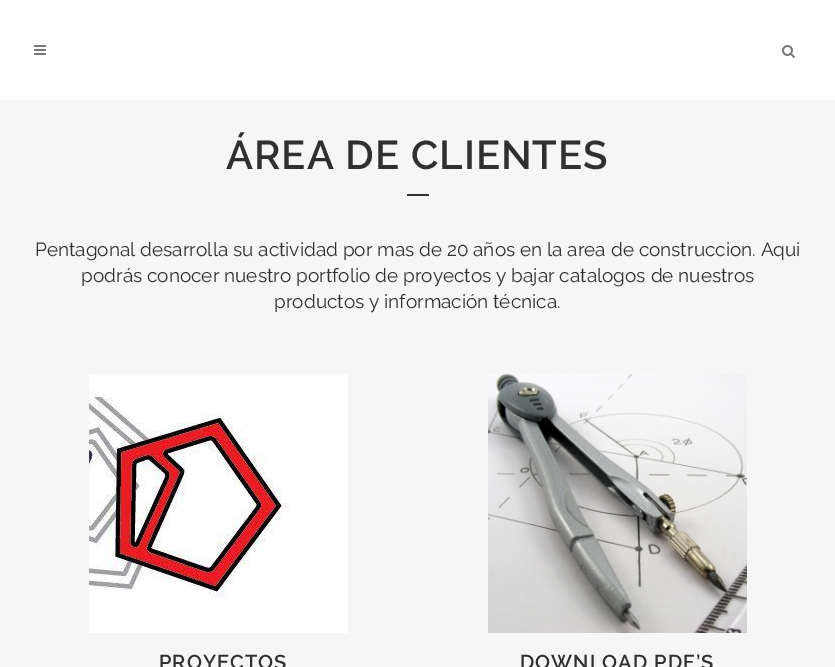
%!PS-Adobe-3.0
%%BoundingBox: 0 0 835 667
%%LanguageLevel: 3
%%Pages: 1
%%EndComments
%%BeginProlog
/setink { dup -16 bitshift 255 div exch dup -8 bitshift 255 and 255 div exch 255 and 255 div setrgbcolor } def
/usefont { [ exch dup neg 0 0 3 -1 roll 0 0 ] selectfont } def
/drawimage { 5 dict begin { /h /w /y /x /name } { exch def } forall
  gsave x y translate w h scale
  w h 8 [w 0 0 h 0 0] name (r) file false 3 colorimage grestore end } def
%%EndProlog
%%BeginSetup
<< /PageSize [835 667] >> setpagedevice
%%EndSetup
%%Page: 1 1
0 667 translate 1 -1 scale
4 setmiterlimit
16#F6F6F6 setink
0 0 835 667 rectfill
16#FFFFFF setink
0 0 835 100 rectfill
(img1.raw) 34 45 12 10 drawimage
(img2.raw) 782 45 13 13 drawimage
/Raleway-SemiBold 40 usefont
16#303030 setink
226 169 moveto 1 0 (ÁREA DE CLIENTES) ashow
407 194 22 2 rectfill
/Raleway-Regular 19 usefont
[
    [(Pentagonal desarrolla su actividad por mas de 20 años en la area de construccion. Aqui) 35 256]
    [(podrás conocer nuestro portfolio de proyectos y bajar catalogos de nuestros) 81 282]
    [(productos y información técnica.) 274 308]
] { aload pop moveto show } forall
(img3.raw) 89 374 259 259 drawimage
/Raleway-SemiBold 20 usefont
159 669 moveto 1 0 (PROYECTOS) ashow
(img4.raw) 488 374 259 259 drawimage
520 669 moveto 1 0 (DOWNLOAD PDF’S) ashow
showpage
%%EOF
